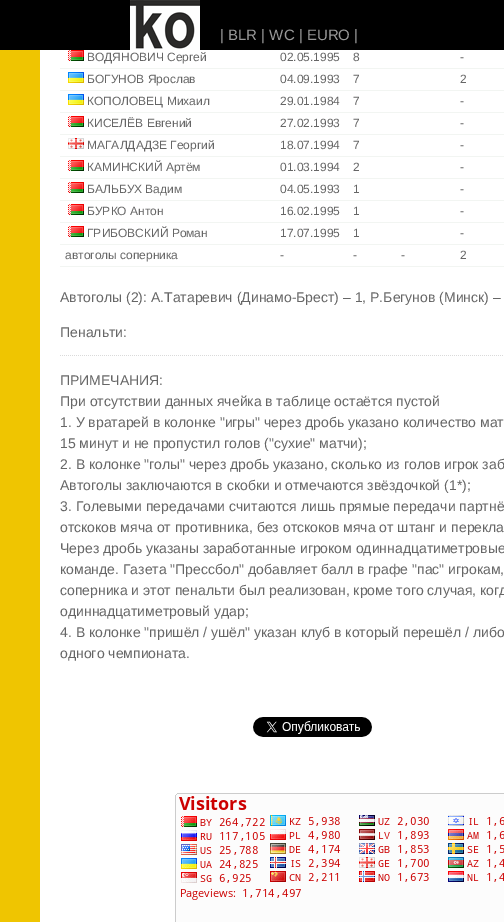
%!PS-Adobe-3.0
%%BoundingBox: 0 0 504 922
%%LanguageLevel: 3
%%Pages: 1
%%EndComments
%%BeginProlog
/setink { dup -16 bitshift 255 div exch dup -8 bitshift 255 and 255 div exch 255 and 255 div setrgbcolor } def
/usefont { [ exch dup neg 0 0 3 -1 roll 0 0 ] selectfont } def
/drawimage { 5 dict begin { /h /w /y /x /name } { exch def } forall
  gsave x y translate w h scale
  w h 8 [w 0 0 h 0 0] name (r) file false 3 colorimage grestore end } def
%%EndProlog
%%BeginSetup
<< /PageSize [504 922] >> setpagedevice
%%EndSetup
%%Page: 1 1
0 922 translate 1 -1 scale
4 setmiterlimit
16#EFC501 setink
0 0 504 922 rectfill
16#000000 setink
0 0 504 50 rectfill
(img1.raw) 130 0 70 50 drawimage
/LiberationSans-Regular 15 usefont
16#999999 setink
220 40 moveto (| BLR | WC | EURO |) show
16#FFFFFF setink
40 50 464 872 rectfill
(img2.raw) 68 50 16 11 drawimage
/LiberationSans-Regular 12 usefont
16#666666 setink
[
    [(ВОДЯНОВИЧ Сергей) 87 61]
    [(02.05.1995) 280 61]
    [(8) 353 61]
    [(-) 460 61]
] { aload pop moveto show } forall
16#F2F5F2 setink
60 68 444 1 rectfill
(img3.raw) 68 72 16 11 drawimage
16#666666 setink
[
    [(БОГУНОВ Ярослав) 87 83]
    [(04.09.1993) 280 83]
    [(7) 353 83]
    [(2) 460 83]
] { aload pop moveto show } forall
16#F2F5F2 setink
60 90 444 1 rectfill
(img3.raw) 68 94 16 11 drawimage
16#666666 setink
[
    [(КОПОЛОВЕЦ Михаил) 87 105]
    [(29.01.1984) 280 105]
    [(7) 353 105]
    [(-) 460 105]
] { aload pop moveto show } forall
16#F2F5F2 setink
60 112 444 1 rectfill
(img2.raw) 68 116 16 11 drawimage
16#666666 setink
[
    [(КИСЕЛЁВ Евгений) 87 127]
    [(27.02.1993) 280 127]
    [(7) 353 127]
    [(-) 460 127]
] { aload pop moveto show } forall
16#F2F5F2 setink
60 134 444 1 rectfill
(img4.raw) 68 138 16 11 drawimage
16#666666 setink
[
    [(МАГАЛДАДЗЕ Георгий) 87 149]
    [(18.07.1994) 280 149]
    [(7) 353 149]
    [(-) 460 149]
] { aload pop moveto show } forall
16#F2F5F2 setink
60 156 444 1 rectfill
(img2.raw) 68 160 16 11 drawimage
16#666666 setink
[
    [(КАМИНСКИЙ Артём) 87 171]
    [(01.03.1994) 280 171]
    [(2) 353 171]
    [(-) 460 171]
] { aload pop moveto show } forall
16#F2F5F2 setink
60 178 444 1 rectfill
(img2.raw) 68 182 16 11 drawimage
16#666666 setink
[
    [(БАЛЬБУХ Вадим) 87 193]
    [(04.05.1993) 280 193]
    [(1) 353 193]
    [(-) 460 193]
] { aload pop moveto show } forall
16#F2F5F2 setink
60 200 444 1 rectfill
(img2.raw) 68 204 16 11 drawimage
16#666666 setink
[
    [(БУРКО Антон) 87 215]
    [(16.02.1995) 280 215]
    [(1) 353 215]
    [(-) 460 215]
] { aload pop moveto show } forall
16#F2F5F2 setink
60 222 444 1 rectfill
(img2.raw) 68 226 16 11 drawimage
16#666666 setink
[
    [(ГРИБОВСКИЙ Роман) 87 237]
    [(17.07.1995) 280 237]
    [(1) 353 237]
    [(-) 460 237]
] { aload pop moveto show } forall
16#F2F5F2 setink
60 244 444 1 rectfill
60 266 444 1 rectfill
16#666666 setink
[
    [(автоголы соперника) 65 259]
    [(-) 280 259]
    [(-) 353 259]
    [(-) 401 259]
    [(2) 460 259]
] { aload pop moveto show } forall
/LiberationSans-Regular 14 usefont
60 302 moveto (Автоголы \(2\): А.Татаревич \(Динамо-Брест\) – 1, Р.Бегунов \(Минск\) –) show
60 337 moveto (Пенальти:) show
(img5.raw) 60 355 443 1 drawimage
[
    [(ПРИМЕЧАНИЯ:) 60 385]
    [(При отсутствии данных ячейка в таблице остаётся пустой) 60 406]
    [(1. У вратарей в колонке "игры" через дробь указано количество мат) 60 427]
    [(15 минут и не пропустил голов \("сухие" матчи\);) 60 448]
    [(2. В колонке "голы" через дробь указано, сколько из голов игрок заб) 60 469]
    [(Автоголы заключаются в скобки и отмечаются звёздочкой \(1*\);) 60 490]
    [(3. Голевыми передачами считаются лишь прямые передачи партнё) 60 511]
    [(отскоков мяча от противника, без отскоков мяча от штанг и перекла) 60 532]
    [(Через дробь указаны заработанные игроком одиннадцатиметровые) 60 553]
    [(команде. Газета "Прессбол" добавляет балл в графе "пас" игрокам,) 60 574]
    [(соперника и этот пенальти был реализован, кроме того случая, когд) 60 595]
    [(одиннадцатиметровый удар;) 60 616]
    [(4. В колонке "пришёл / ушёл" указан клуб в который перешёл / либо) 60 637]
    [(одного чемпионата.) 60 658]
] { aload pop moveto show } forall
(img6.raw) 253 717 119 20 drawimage
(img7.raw) 175 793 329 129 drawimage
showpage
%%EOF
